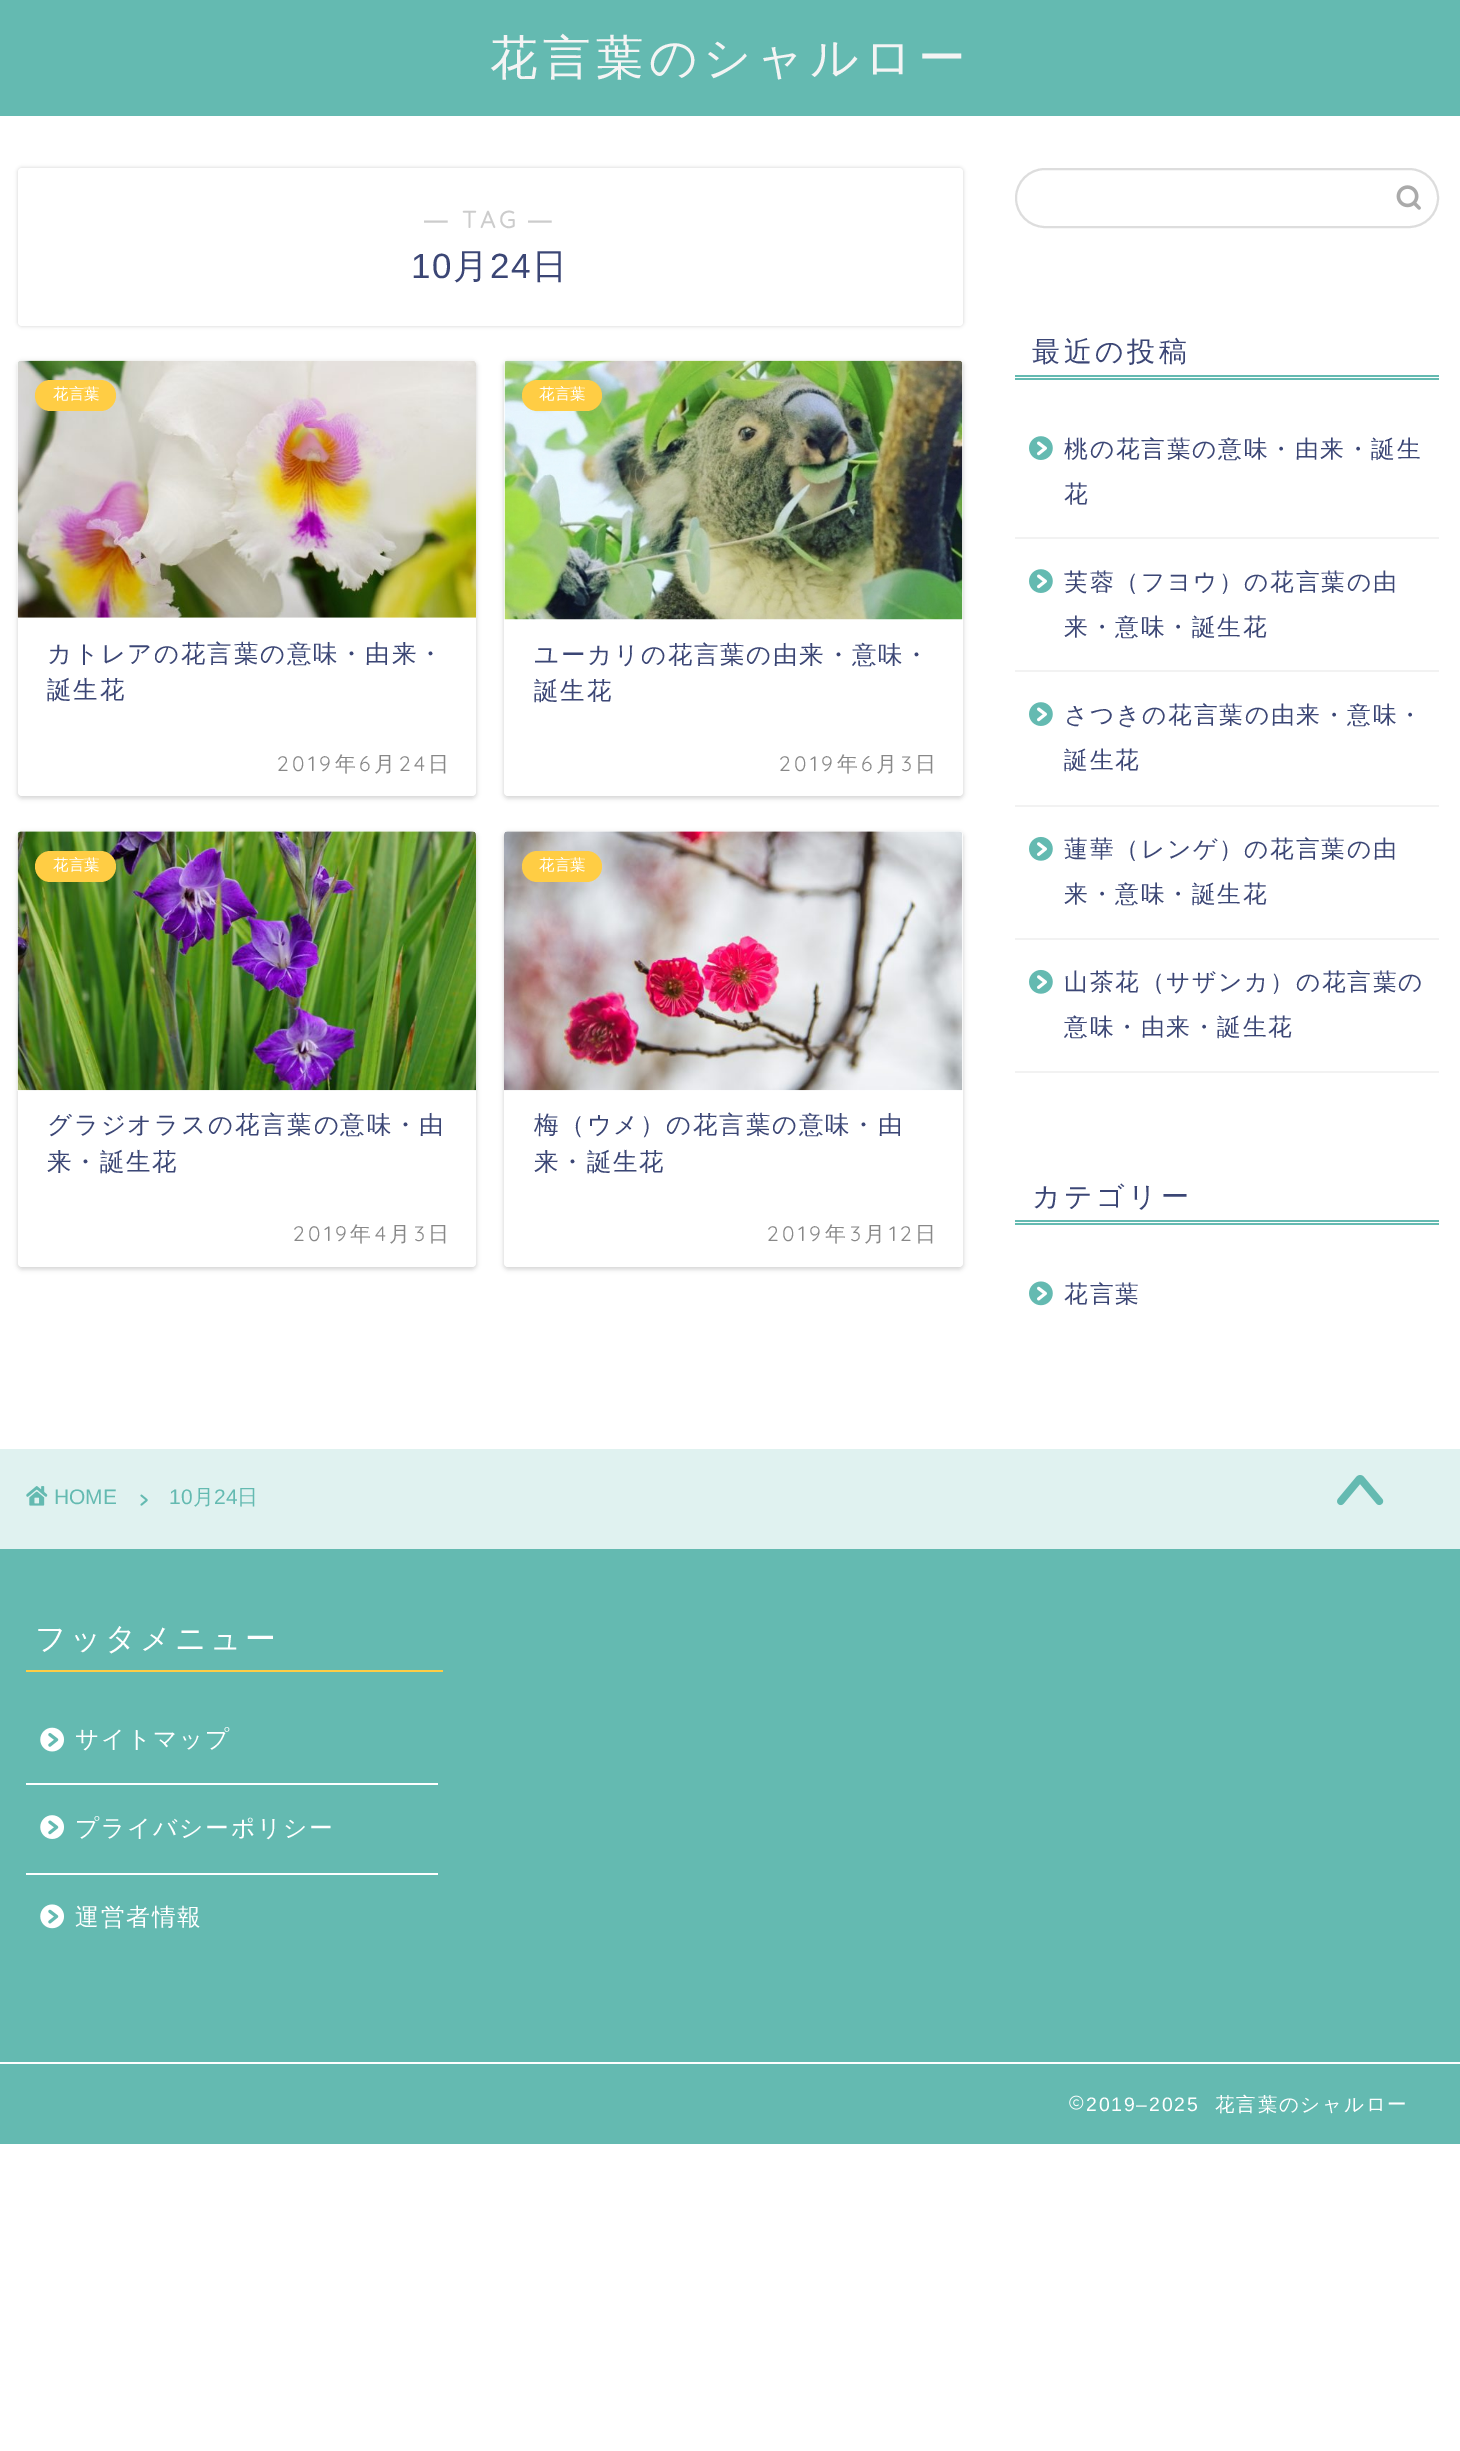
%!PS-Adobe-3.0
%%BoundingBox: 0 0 1460 2451
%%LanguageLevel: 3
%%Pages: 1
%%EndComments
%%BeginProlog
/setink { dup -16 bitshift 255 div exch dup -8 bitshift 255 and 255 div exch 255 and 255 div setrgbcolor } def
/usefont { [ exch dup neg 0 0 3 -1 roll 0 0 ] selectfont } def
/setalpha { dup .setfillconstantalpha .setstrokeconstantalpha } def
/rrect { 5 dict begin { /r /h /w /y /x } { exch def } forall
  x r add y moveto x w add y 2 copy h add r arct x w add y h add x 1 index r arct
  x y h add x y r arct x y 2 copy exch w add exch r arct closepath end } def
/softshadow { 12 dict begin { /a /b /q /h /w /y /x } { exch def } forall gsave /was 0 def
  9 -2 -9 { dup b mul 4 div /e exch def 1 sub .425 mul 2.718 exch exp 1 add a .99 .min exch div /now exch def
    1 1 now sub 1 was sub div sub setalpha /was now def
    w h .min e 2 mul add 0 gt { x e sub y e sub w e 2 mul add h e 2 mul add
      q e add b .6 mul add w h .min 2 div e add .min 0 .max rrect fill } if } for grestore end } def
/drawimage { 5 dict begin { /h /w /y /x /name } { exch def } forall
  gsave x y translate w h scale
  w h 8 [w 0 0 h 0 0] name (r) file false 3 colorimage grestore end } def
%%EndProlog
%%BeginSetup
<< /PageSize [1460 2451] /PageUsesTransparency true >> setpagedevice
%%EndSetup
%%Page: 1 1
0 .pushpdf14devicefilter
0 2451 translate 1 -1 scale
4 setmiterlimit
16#FFFFFF setink
0 0 1460 2451 rectfill
16#64BAB1 setink
0 0 1460 116 rectfill
/WenQuanYiZenHei-Medium 47.6 usefont
16#F4F4F4 setink
490 74 moveto 5.25 0 (花言葉のシャルロー) ashow
16#000000 setink
18 168 945 158 4 2 0.18 softshadow
16#FFFFFF setink
18 168 945 158 4 rrect fill
/LiberationSans-Bold 23.75 usefont
16#CCCCCC setink
424 228 moveto 3.5 0 (―) ashow
/Quicksand-Bold 23.75 usefont
462 228 moveto 3.5 0 (TAG) ashow
/LiberationSans-Bold 23.75 usefont
528 228 moveto 3.5 0 (―) ashow
/LiberationSans-Regular 35 usefont
16#3B4675 setink
411 278 moveto 1.75 0 (10) ashow
/WenQuanYiZenHei-Medium 35 usefont
453 278 moveto 1.75 0 (月) ashow
/LiberationSans-Regular 35 usefont
490 278 moveto 1.75 0 (24) ashow
/WenQuanYiZenHei-Medium 35 usefont
532 278 moveto 1.75 0 (日) ashow
16#000000 setink
18 362 458 436 4 2.5 0.18 softshadow
16#FFFFFF setink
18 361 458 435 4 rrect fill
(img1.raw) 17 360 459 258 drawimage
16#FFCD44 setink
35 380 81 31 15.5 rrect fill
/WenQuanYiZenHei-Medium 15.5 usefont
16#FFFFFF setink
53 399 moveto (花言葉) show
/WenQuanYiZenHei-Medium 24.5 usefont
16#3B4675 setink
47 662 moveto 1.75 0 (カトレアの花言葉の意味・由来・) ashow
47 698 moveto 1.75 0 (誕生花) ashow
/Quicksand-Light 21 usefont
16#888888 setink
277 771 moveto 3.5 0 (2019) ashow
/WenQuanYiZenHei-Medium 21 usefont
335 771 moveto 3.5 0 (年) ashow
/Quicksand-Light 21 usefont
359 771 moveto 3.5 0 (6) ashow
/WenQuanYiZenHei-Medium 21 usefont
374 771 moveto 3.5 0 (月) ashow
/Quicksand-Light 21 usefont
399 771 moveto 3.5 0 (24) ashow
/WenQuanYiZenHei-Medium 21 usefont
428 771 moveto 3.5 0 (日) ashow
16#000000 setink
504 362 459 436 4 2.5 0.18 softshadow
16#FFFFFF setink
504 361 459 435 4 rrect fill
(img2.raw) 504 360 459 260 drawimage
16#FFCD44 setink
522 380 80 31 15.5 rrect fill
/WenQuanYiZenHei-Medium 15.5 usefont
16#FFFFFF setink
539 399 moveto (花言葉) show
/WenQuanYiZenHei-Medium 24.5 usefont
16#3B4675 setink
534 663 moveto 1.75 0 (ユーカリの花言葉の由来・意味・) ashow
534 699 moveto 1.75 0 (誕生花) ashow
/Quicksand-Light 21 usefont
16#888888 setink
779 771 moveto 3.5 0 (2019) ashow
/WenQuanYiZenHei-Medium 21 usefont
837 771 moveto 3.5 0 (年) ashow
/Quicksand-Light 21 usefont
861 771 moveto 3.5 0 (6) ashow
/WenQuanYiZenHei-Medium 21 usefont
876 771 moveto 3.5 0 (月) ashow
/Quicksand-Light 21 usefont
901 771 moveto 3.5 0 (3) ashow
/WenQuanYiZenHei-Medium 21 usefont
915 771 moveto 3.5 0 (日) ashow
16#000000 setink
18 833 458 436 4 2.5 0.18 softshadow
16#FFFFFF setink
18 831 458 436 4 rrect fill
(img3.raw) 17 831 459 260 drawimage
16#FFCD44 setink
35 851 81 31 15.5 rrect fill
/WenQuanYiZenHei-Medium 15.5 usefont
16#FFFFFF setink
53 870 moveto (花言葉) show
/WenQuanYiZenHei-Medium 24.5 usefont
16#3B4675 setink
47 1133 moveto 1.75 0 (グラジオラスの花言葉の意味・由) ashow
47 1170 moveto 1.75 0 (来・誕生花) ashow
/Quicksand-Light 21 usefont
16#888888 setink
293 1241 moveto 3.5 0 (2019) ashow
/WenQuanYiZenHei-Medium 21 usefont
350 1241 moveto 3.5 0 (年) ashow
/Quicksand-Light 21 usefont
375 1241 moveto 3.5 0 (4) ashow
/WenQuanYiZenHei-Medium 21 usefont
389 1241 moveto 3.5 0 (月) ashow
/Quicksand-Light 21 usefont
414 1241 moveto 3.5 0 (3) ashow
/WenQuanYiZenHei-Medium 21 usefont
428 1241 moveto 3.5 0 (日) ashow
16#000000 setink
504 833 459 436 4 2.5 0.18 softshadow
16#FFFFFF setink
504 831 459 436 4 rrect fill
(img4.raw) 504 831 459 260 drawimage
16#FFCD44 setink
522 851 80 31 15.5 rrect fill
/WenQuanYiZenHei-Medium 15.5 usefont
16#FFFFFF setink
539 870 moveto (花言葉) show
/WenQuanYiZenHei-Medium 24.5 usefont
16#3B4675 setink
534 1133 moveto 1.75 0 (梅（ウメ）の花言葉の意味・由) ashow
534 1170 moveto 1.75 0 (来・誕生花) ashow
/Quicksand-Light 21 usefont
16#888888 setink
767 1241 moveto 3.5 0 (2019) ashow
/WenQuanYiZenHei-Medium 21 usefont
825 1241 moveto 3.5 0 (年) ashow
/Quicksand-Light 21 usefont
850 1241 moveto 3.5 0 (3) ashow
/WenQuanYiZenHei-Medium 21 usefont
864 1241 moveto 3.5 0 (月) ashow
/Quicksand-Light 21 usefont
889 1241 moveto 3.5 0 (12) ashow
/WenQuanYiZenHei-Medium 21 usefont
915 1241 moveto 3.5 0 (日) ashow
16#DDDDDD setink
2 setlinewidth
1016 169 422 58 29 rrect stroke
(img5.raw) 1396 185 25 25 drawimage
16#64BAB1 setink
1015 375 424 2 rectfill
1015 378 424 2 rectfill
/WenQuanYiZenHei-Medium 28 usefont
16#3B4675 setink
1032 361 moveto 3.5 0 (最近の投稿) ashow
16#F2F2F2 setink
1015 537 424 2 rectfill
(img6.raw) 1029 436 24 24 drawimage
/WenQuanYiZenHei-Medium 23.75 usefont
16#3B4675 setink
1064 457 moveto 1.75 0 (桃の花言葉の意味・由来・誕生) ashow
1064 502 moveto 1.75 0 (花) ashow
16#F2F2F2 setink
1015 670 424 2 rectfill
(img6.raw) 1029 569 24 24 drawimage
16#3B4675 setink
1064 590 moveto 1.75 0 (芙蓉（フヨウ）の花言葉の由) ashow
1064 635 moveto 1.75 0 (来・意味・誕生花) ashow
16#F2F2F2 setink
1015 805 424 2 rectfill
(img6.raw) 1029 702 24 24 drawimage
16#3B4675 setink
1064 723 moveto 1.75 0 (さつきの花言葉の由来・意味・) ashow
1064 768 moveto 1.75 0 (誕生花) ashow
16#F2F2F2 setink
1015 938 424 2 rectfill
(img7.raw) 1029 836 24 25 drawimage
16#3B4675 setink
1064 857 moveto 1.75 0 (蓮華（レンゲ）の花言葉の由) ashow
1064 902 moveto 1.75 0 (来・意味・誕生花) ashow
16#F2F2F2 setink
1015 1071 424 2 rectfill
(img7.raw) 1029 969 24 25 drawimage
16#3B4675 setink
1064 990 moveto 1.75 0 (山茶花（サザンカ）の花言葉の) ashow
1064 1035 moveto 1.75 0 (意味・由来・誕生花) ashow
16#64BAB1 setink
1015 1220 424 2 rectfill
1015 1223 424 2 rectfill
/WenQuanYiZenHei-Medium 28 usefont
16#3B4675 setink
1032 1206 moveto 3.5 0 (カテゴリー) ashow
(img8.raw) 1029 1281 24 25 drawimage
/WenQuanYiZenHei-Medium 23.75 usefont
1064 1302 moveto 1.75 0 (花言葉) ashow
16#E0F2F0 setink
0 1449 1460 100 rectfill
(img9.raw) 26 1486 22 20 drawimage
/LiberationSans-Regular 21 usefont
16#64BAB1 setink
54 1504 moveto (HOME) show
(img10.raw) 140 1494 8 12 drawimage
169 1504 moveto (10) show
/WenQuanYiZenHei-Medium 21 usefont
193 1504 moveto (月) show
/LiberationSans-Regular 21 usefont
214 1504 moveto (24) show
/WenQuanYiZenHei-Medium 21 usefont
237 1504 moveto (日) show
(img11.raw) 1337 1475 47 31 drawimage
[
    [0 1549 1460 595 16#64BAB1]
    [0 2062 1460 2 16#FFFFFF]
    [26 1670 417 2 16#FFCD44]
] { aload pop setink rectfill } forall
/WenQuanYiZenHei-Medium 30.75 usefont
16#FFFFFF setink
35 1649 moveto 3.5 0 (フッタメニュー) ashow
26 1783 412 2 rectfill
(img12.raw) 40 1727 25 25 drawimage
/WenQuanYiZenHei-Medium 23.75 usefont
75 1747 moveto 1.75 0 (サイトマップ) ashow
26 1873 412 2 rectfill
(img13.raw) 40 1815 24 24 drawimage
75 1836 moveto 1.75 0 (プライバシーポリシー) ashow
(img14.raw) 40 1904 24 25 drawimage
75 1925 moveto 1.75 0 (運営者情報) ashow
(img15.raw) 1069 2095 15 15 drawimage
/LiberationSans-Regular 19.5 usefont
1086 2111 moveto 1.75 0 (2019–2025) ashow
/WenQuanYiZenHei-Medium 19.5 usefont
1215 2111 moveto 1.75 0 (花言葉のシャルロー) ashow
.poppdf14devicefilter showpage
%%EOF
